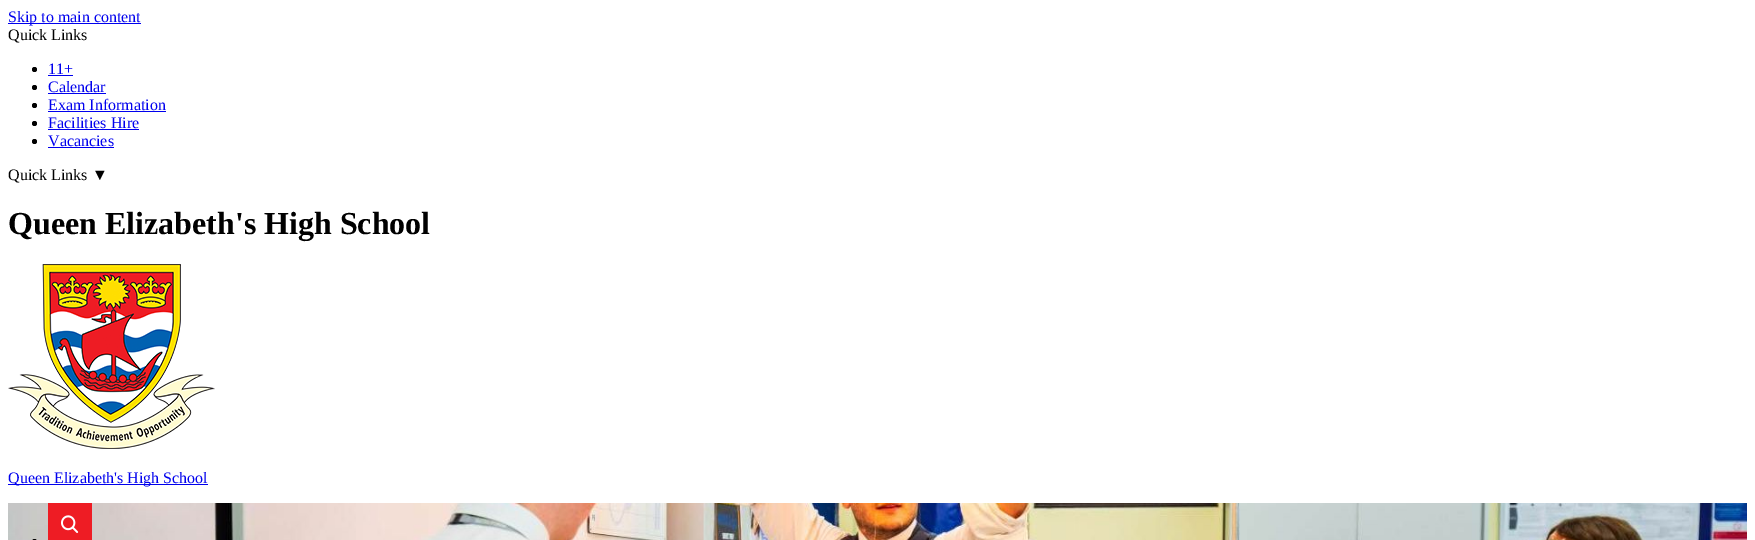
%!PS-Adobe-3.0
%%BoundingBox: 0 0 1755 540
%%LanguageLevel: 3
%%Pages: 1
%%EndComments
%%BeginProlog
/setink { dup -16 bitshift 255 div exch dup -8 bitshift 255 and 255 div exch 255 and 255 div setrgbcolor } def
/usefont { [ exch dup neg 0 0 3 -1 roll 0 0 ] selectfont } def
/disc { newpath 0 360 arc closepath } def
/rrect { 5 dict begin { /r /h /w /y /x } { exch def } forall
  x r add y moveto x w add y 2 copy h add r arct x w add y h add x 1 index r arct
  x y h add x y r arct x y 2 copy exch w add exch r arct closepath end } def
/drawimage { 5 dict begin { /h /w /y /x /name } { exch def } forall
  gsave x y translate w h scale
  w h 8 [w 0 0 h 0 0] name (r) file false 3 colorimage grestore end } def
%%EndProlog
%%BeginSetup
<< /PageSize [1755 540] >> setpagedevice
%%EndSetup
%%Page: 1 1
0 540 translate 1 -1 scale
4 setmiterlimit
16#FFFFFF setink
0 0 1755 540 rectfill
16#0000EE setink
8 23 133 1 rectfill
/LiberationSerif-Regular 16 usefont
8 22 moveto (Skip to main content) show
16#000000 setink
8 40 moveto (Quick Links) show
34.5 69.5 2.5 disc fill
16#0000EE setink
48 74 moveto (11+) show
48 75 25 1 rectfill
16#000000 setink
34.5 87.5 2.5 disc fill
16#0000EE setink
48 92 moveto (Calendar) show
48 93 58 1 rectfill
16#000000 setink
34.5 105.5 2.5 disc fill
16#0000EE setink
48 110 moveto (Exam Information) show
48 111 118 1 rectfill
16#000000 setink
34.5 123.5 2.5 disc fill
16#0000EE setink
48 128 moveto (Facilities Hire) show
48 129 91 1 rectfill
16#000000 setink
34.5 141.5 2.5 disc fill
16#0000EE setink
48 146 moveto (Vacancies) show
48 147 66 1 rectfill
16#000000 setink
8 180 moveto (Quick Links ▼) show
/LiberationSerif-Bold 32 usefont
8 234 moveto (Queen Elizabeth's High School) show
(img1.raw) 8 264 207 185 drawimage
16#0000EE setink
8 484 200 1 rectfill
/LiberationSerif-Regular 16 usefont
8 483 moveto (Queen Elizabeth's High School) show
(img2.raw) 8 503 1739 37 drawimage
(img3.raw) 48 503 44 37 drawimage
16#000000 setink
32 539 5 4 2.5 rrect fill
showpage
%%EOF
